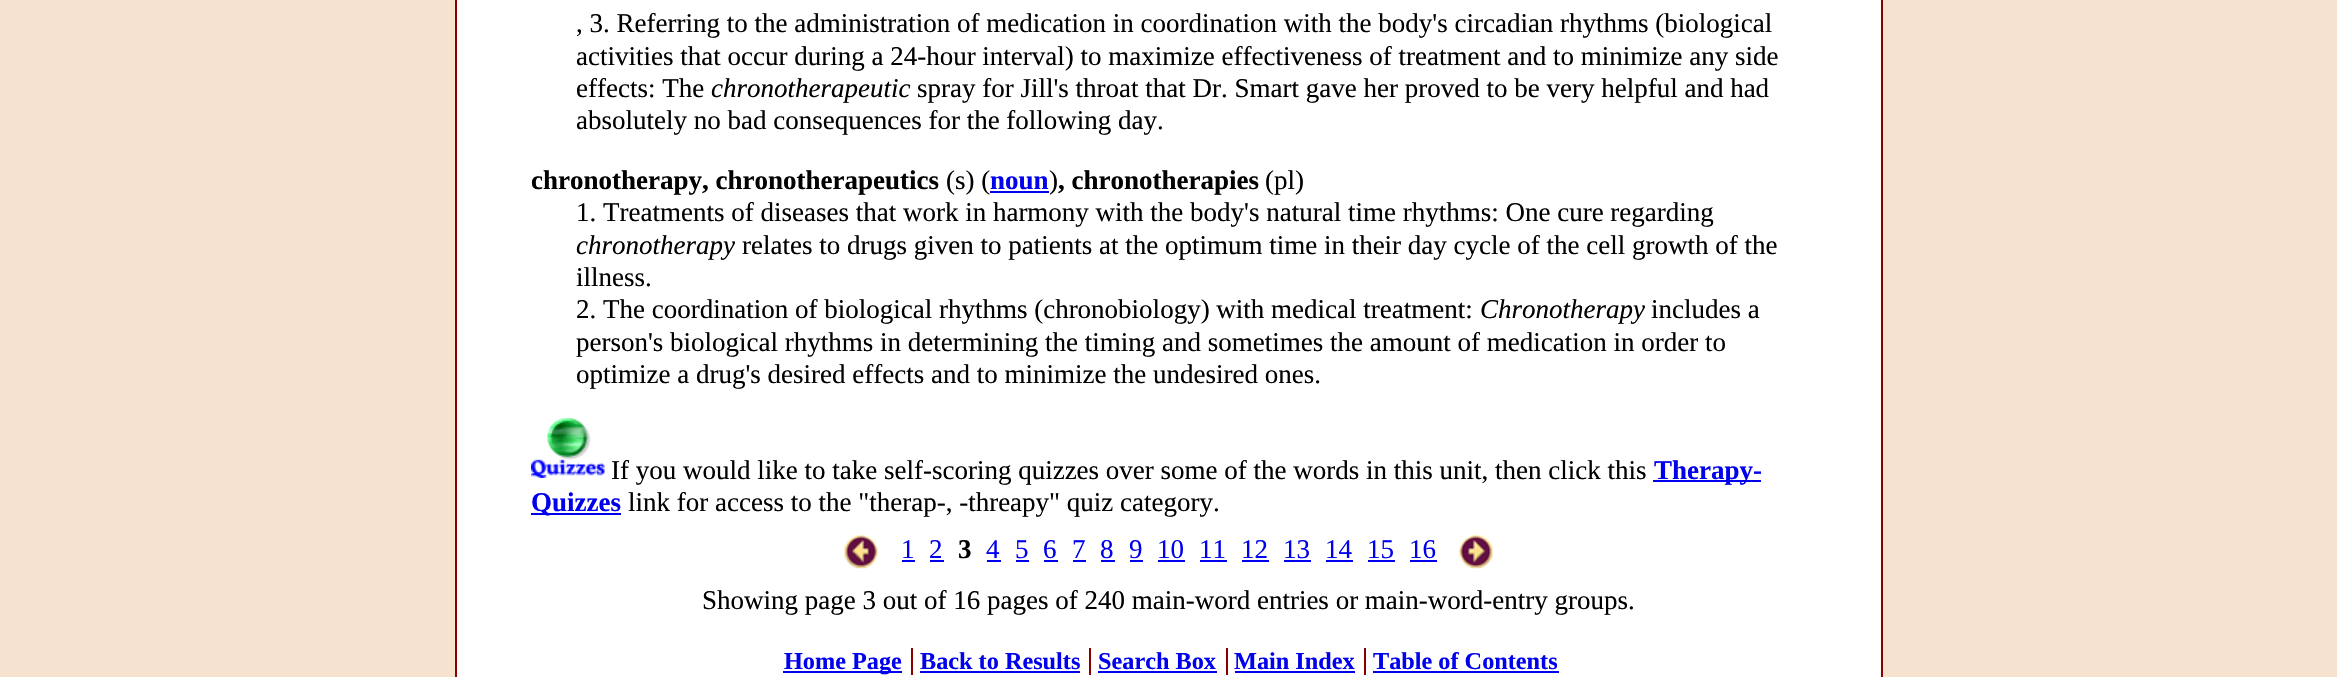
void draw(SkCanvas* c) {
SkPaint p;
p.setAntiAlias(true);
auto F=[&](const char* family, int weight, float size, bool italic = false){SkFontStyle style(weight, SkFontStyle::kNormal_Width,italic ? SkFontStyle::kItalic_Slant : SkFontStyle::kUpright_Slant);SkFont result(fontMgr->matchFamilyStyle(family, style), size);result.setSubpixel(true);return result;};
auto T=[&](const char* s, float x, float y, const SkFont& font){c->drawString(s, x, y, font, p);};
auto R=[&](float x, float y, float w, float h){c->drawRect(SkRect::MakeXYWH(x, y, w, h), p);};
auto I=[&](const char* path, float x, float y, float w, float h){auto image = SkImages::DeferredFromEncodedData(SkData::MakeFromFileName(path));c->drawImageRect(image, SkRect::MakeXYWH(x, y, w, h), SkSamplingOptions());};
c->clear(0xfff5e3cf);
p.setColor(0xffffffff);
c->drawRect(SkRect::MakeXYWH(456,-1,1426,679),p);
p.setStroke(true);
p.setStrokeWidth(2);
p.setColor(0xff880000);
c->drawRect(SkRect::MakeXYWH(456,-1,1426,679),p);
auto f1 = F("Liberation Serif",400,27);
p.setStroke(false);
p.setColor(0xff000000);
T(", 3. Referring to the administration of medication in coordination with the body's circadian rhythms (biological",576,32,f1);
T("activities that occur during a 24-hour interval) to maximize effectiveness of treatment and to minimize any side",576,65,f1);
T("effects: The",576,97,f1);
auto f2 = F("Liberation Serif",400,27,true);
T("chronotherapeutic",711,97,f2);
T("spray for Jill's throat that Dr. Smart gave her proved to be very helpful and had",917,97,f1);
T("absolutely no bad consequences for the following day.",576,129,f1);
auto f3 = F("Liberation Serif",700,27);
T("chronotherapy, chronotherapeutics",531,189,f3);
T("(s) (",946,189,f1);
p.setColor(0xff0000ee);
T("noun",990,189,f3);
R(990,191,59,2);
p.setColor(0xff000000);
T(")",1049,189,f1);
T(", chronotherapies",1058,189,f3);
T("(pl)",1265,189,f1);
T("1. Treatments of diseases that work in harmony with the body's natural time rhythms: One cure regarding",576,221,f1);
T("chronotherapy",576,254,f2);
T("relates to drugs given to patients at the optimum time in their day cycle of the cell growth of the",742,254,f1);
T("illness.",576,286,f1);
T("2. The coordination of biological rhythms (chronobiology) with medical treatment:",576,318,f1);
T("Chronotherapy",1480,318,f2);
T("includes a",1651,318,f1);
T("person's biological rhythms in determining the timing and sometimes the amount of medication in order to",576,351,f1);
T("optimize a drug's desired effects and to minimize the undesired ones.",576,383,f1);
I("1.png",531,418,74,60);
T("If you would like to take self-scoring quizzes over some of the words in this unit, then click this",611,479,f1);
p.setColor(0xff0000ee);
R(1653,480,108,2);
T("Therapy-",1654,479,f3);
R(531,513,90,2);
T("Quizzes",531,511,f3);
p.setColor(0xff000000);
T("link for access to the \"therap-, -threapy\" quiz category.",628,511,f1);
I("2.png",844,534,34,35);
p.setColor(0xff0000ee);
T("1",901,558,f1);
R(902,560,13,2);
T("2",929,558,f1);
R(930,560,14,2);
p.setColor(0xff000000);
T("3",958,558,f3);
p.setColor(0xff0000ee);
T("4",986,558,f1);
R(987,560,14,2);
T("5",1015,558,f1);
R(1016,560,13,2);
T("6",1043,558,f1);
R(1044,560,14,2);
T("7",1072,558,f1);
R(1073,560,13,2);
T("8",1100,558,f1);
R(1101,560,14,2);
T("9",1129,558,f1);
R(1130,560,13,2);
T("10",1157,558,f1);
R(1158,560,27,2);
T("11",1199,558,f1);
R(1200,560,27,2);
T("12",1241,558,f1);
R(1242,560,27,2);
T("13",1283,558,f1);
R(1284,560,27,2);
T("14",1325,558,f1);
R(1326,560,27,2);
T("15",1367,558,f1);
R(1368,560,27,2);
T("16",1409,558,f1);
R(1410,560,27,2);
I("3.png",1459,534,34,35);
p.setColor(0xff000000);
T("Showing page 3 out of 16 pages of 240 main-word entries or main-word-entry groups.",702,609,f1);
p.setColor(0xff0000ee);
R(783,671,119,2);
auto f4 = F("Liberation Serif",700,24.25);
T("Home Page",784,669,f4);
T("Back to Results",920,669,f4);
p.setColor(0xff880000);
R(911,648,2,27);
p.setColor(0xff0000ee);
R(920,671,160,2);
T("Search Box",1098,669,f4);
p.setColor(0xff880000);
R(1089,648,2,27);
p.setColor(0xff0000ee);
R(1098,671,119,2);
T("Main Index",1234,669,f4);
p.setColor(0xff880000);
R(1226,648,2,27);
p.setColor(0xff0000ee);
R(1235,671,120,2);
T("Table of Contents",1373,669,f4);
p.setColor(0xff880000);
R(1364,648,2,27);
p.setColor(0xff0000ee);
R(1373,671,186,2);
}
